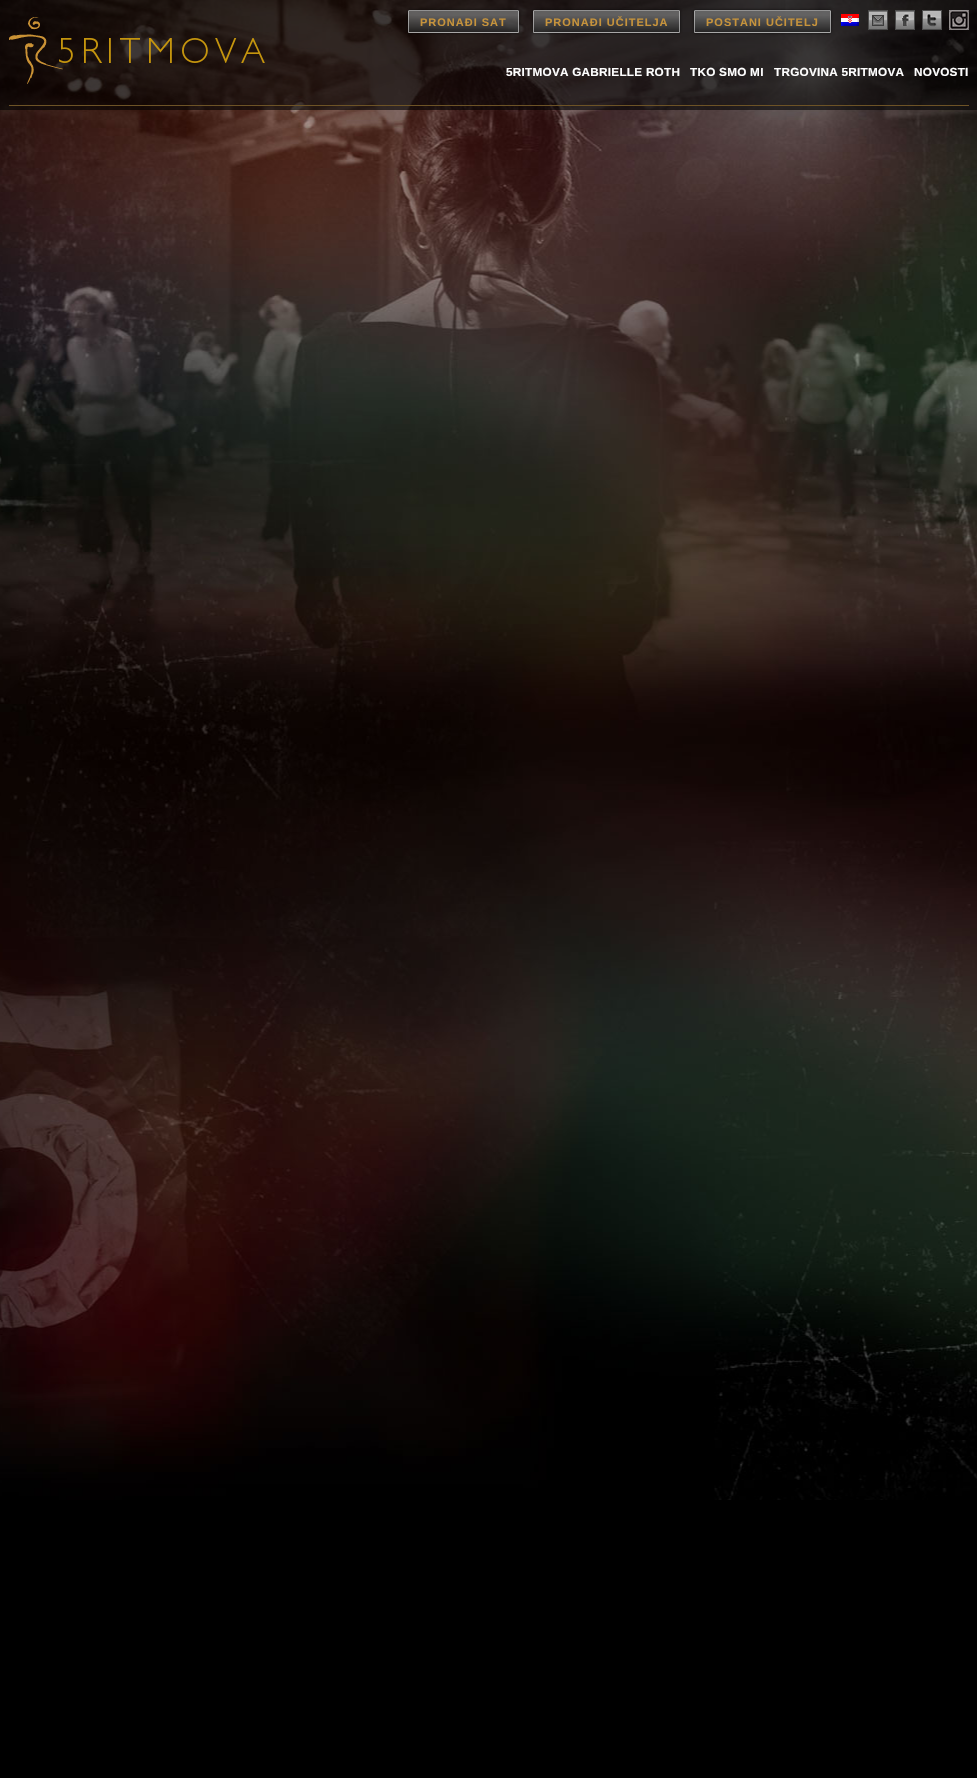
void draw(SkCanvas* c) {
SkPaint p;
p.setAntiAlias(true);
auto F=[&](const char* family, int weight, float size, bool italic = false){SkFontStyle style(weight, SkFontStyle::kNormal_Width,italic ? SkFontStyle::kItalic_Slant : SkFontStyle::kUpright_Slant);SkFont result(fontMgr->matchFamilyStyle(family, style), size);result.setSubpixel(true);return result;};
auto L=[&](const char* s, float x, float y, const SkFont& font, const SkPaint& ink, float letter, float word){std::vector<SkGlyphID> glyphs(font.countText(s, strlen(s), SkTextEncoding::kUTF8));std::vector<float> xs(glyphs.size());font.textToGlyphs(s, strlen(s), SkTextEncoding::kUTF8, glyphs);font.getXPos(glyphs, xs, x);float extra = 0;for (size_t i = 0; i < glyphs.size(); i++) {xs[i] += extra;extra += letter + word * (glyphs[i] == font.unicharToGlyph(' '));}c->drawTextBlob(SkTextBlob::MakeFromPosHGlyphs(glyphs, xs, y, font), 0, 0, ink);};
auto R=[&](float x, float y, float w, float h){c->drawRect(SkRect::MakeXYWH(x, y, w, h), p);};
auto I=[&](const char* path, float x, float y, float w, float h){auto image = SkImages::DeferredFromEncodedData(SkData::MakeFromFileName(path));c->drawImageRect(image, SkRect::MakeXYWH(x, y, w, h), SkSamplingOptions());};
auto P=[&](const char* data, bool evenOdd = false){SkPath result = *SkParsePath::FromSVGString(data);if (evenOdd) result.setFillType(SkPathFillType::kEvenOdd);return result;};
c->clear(0xff000000);
I("1.png",0,800,977,700);
I("2.png",0,0,977,800);
p.setColor(0x99000000);
R(0,0,977,110);
p.setColor(0xff6d5326);
R(9,105,960,1);
I("3.png",9,17,256,67);
c->save();
c->clipPath(P("M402 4h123v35h-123zm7 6h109c.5 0 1 .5 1 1v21c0 .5-.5 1-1 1h-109c-.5 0-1-.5-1-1v-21c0-.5 .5-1 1-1z",true),true);
p.setColor(0xb3000000);
p.setMaskFilter(SkMaskFilter::MakeBlur(kNormal_SkBlurStyle, 1.5));
c->drawRoundRect(SkRect::MakeXYWH(408,10,111,23),1,1,p);
p.setMaskFilter(nullptr);
c->restore();
{
const SkColor colors[] = {0xcc707070,0xcc252525};
const float stops[] = {.2,1};
const SkPoint ends[] = {{464,-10}, {464,11}};
p.setShader(SkGradientShader::MakeLinear(ends, colors, stops, 2, SkTileMode::kClamp));
p.setAlpha(255);
}
c->drawPath(P("M409 10h109c.5 0 1 .5 1 1h-111c0-.5 .5-1 1-1z"),p);
{
const SkColor colors[] = {0xcc707070,0xcc252525};
const float stops[] = {.2,1};
const SkPoint ends[] = {{464,11}, {464,32}};
p.setShader(SkGradientShader::MakeLinear(ends, colors, stops, 2, SkTileMode::kClamp));
p.setAlpha(255);
}
R(408,11,111,21);
{
const SkColor colors[] = {0xcc707070,0xcc252525};
const float stops[] = {.2,1};
const SkPoint ends[] = {{464,32}, {464,53}};
p.setShader(SkGradientShader::MakeLinear(ends, colors, stops, 2, SkTileMode::kClamp));
p.setAlpha(255);
}
c->drawPath(P("M408 32h111c0 .5-.5 1-1 1h-109c-.5 0-1-.5-1-1z"),p);
p.setStroke(true);
p.setStrokeWidth(1);
p.setShader(nullptr);
p.setColor(0xa6cccccc);
c->drawRoundRect(SkRect::MakeXYWH(408.5,10.5,110,22),.5,.5,p);
auto f1 = F("Liberation Sans",700,11);
p.setStroke(false);
p.setColor(0xffc6933c);
L("PRONAĐI SAT",420,26,f1,p,1,0);
c->save();
c->clipPath(P("M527 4h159v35h-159zm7 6h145c.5 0 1 .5 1 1v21c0 .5-.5 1-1 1h-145c-.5 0-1-.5-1-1v-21c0-.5 .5-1 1-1z",true),true);
p.setColor(0xb3000000);
p.setMaskFilter(SkMaskFilter::MakeBlur(kNormal_SkBlurStyle, 1.5));
c->drawRoundRect(SkRect::MakeXYWH(533,10,147,23),1,1,p);
p.setMaskFilter(nullptr);
c->restore();
{
const SkColor colors[] = {0xcc707070,0xcc252525};
const float stops[] = {.2,1};
const SkPoint ends[] = {{607,-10}, {607,11}};
p.setShader(SkGradientShader::MakeLinear(ends, colors, stops, 2, SkTileMode::kClamp));
p.setAlpha(255);
}
c->drawPath(P("M534 10h145c.5 0 1 .5 1 1h-147c0-.5 .5-1 1-1z"),p);
{
const SkColor colors[] = {0xcc707070,0xcc252525};
const float stops[] = {.2,1};
const SkPoint ends[] = {{607,11}, {607,32}};
p.setShader(SkGradientShader::MakeLinear(ends, colors, stops, 2, SkTileMode::kClamp));
p.setAlpha(255);
}
R(533,11,147,21);
{
const SkColor colors[] = {0xcc707070,0xcc252525};
const float stops[] = {.2,1};
const SkPoint ends[] = {{607,32}, {607,53}};
p.setShader(SkGradientShader::MakeLinear(ends, colors, stops, 2, SkTileMode::kClamp));
p.setAlpha(255);
}
c->drawPath(P("M533 32h147c0 .5-.5 1-1 1h-145c-.5 0-1-.5-1-1z"),p);
p.setStroke(true);
p.setShader(nullptr);
p.setColor(0xa6cccccc);
c->drawRoundRect(SkRect::MakeXYWH(533.5,10.5,146,22),.5,.5,p);
p.setStroke(false);
p.setColor(0xffc6933c);
L("PRONAĐI UČITELJA",545,26,f1,p,1,0);
c->save();
c->clipPath(P("M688 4h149v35h-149zm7 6h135c.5 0 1 .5 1 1v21c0 .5-.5 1-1 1h-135c-.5 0-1-.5-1-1v-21c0-.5 .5-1 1-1z",true),true);
p.setColor(0xb3000000);
p.setMaskFilter(SkMaskFilter::MakeBlur(kNormal_SkBlurStyle, 1.5));
c->drawRoundRect(SkRect::MakeXYWH(694,10,137,23),1,1,p);
p.setMaskFilter(nullptr);
c->restore();
{
const SkColor colors[] = {0xcc707070,0xcc252525};
const float stops[] = {.2,1};
const SkPoint ends[] = {{763,-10}, {763,11}};
p.setShader(SkGradientShader::MakeLinear(ends, colors, stops, 2, SkTileMode::kClamp));
p.setAlpha(255);
}
c->drawPath(P("M695 10h135c.5 0 1 .5 1 1h-137c0-.5 .5-1 1-1z"),p);
{
const SkColor colors[] = {0xcc707070,0xcc252525};
const float stops[] = {.2,1};
const SkPoint ends[] = {{763,11}, {763,32}};
p.setShader(SkGradientShader::MakeLinear(ends, colors, stops, 2, SkTileMode::kClamp));
p.setAlpha(255);
}
R(694,11,137,21);
{
const SkColor colors[] = {0xcc707070,0xcc252525};
const float stops[] = {.2,1};
const SkPoint ends[] = {{763,32}, {763,53}};
p.setShader(SkGradientShader::MakeLinear(ends, colors, stops, 2, SkTileMode::kClamp));
p.setAlpha(255);
}
c->drawPath(P("M694 32h137c0 .5-.5 1-1 1h-135c-.5 0-1-.5-1-1z"),p);
p.setStroke(true);
p.setShader(nullptr);
p.setColor(0xa6cccccc);
c->drawRoundRect(SkRect::MakeXYWH(694.5,10.5,136,22),.5,.5,p);
p.setStroke(false);
p.setColor(0xffc6933c);
L("POSTANI UČITELJ",706,26,f1,p,1,0);
I("4.png",841,14,18,12);
I("5.png",868,10,20,20);
I("6.png",895,10,20,20);
I("7.png",922,10,20,20);
I("8.png",949,10,20,20);
auto f2 = F("Liberation Sans",700,11.75);
p.setColor(0xffffffff);
L("5RITMOVA GABRIELLE ROTH",506,76,f2,p,.25,0);
L("TKO SMO MI",690,76,f2,p,.25,0);
L("TRGOVINA 5RITMOVA",774,76,f2,p,.25,0);
L("NOVOSTI",914,76,f2,p,.25,0);
}
